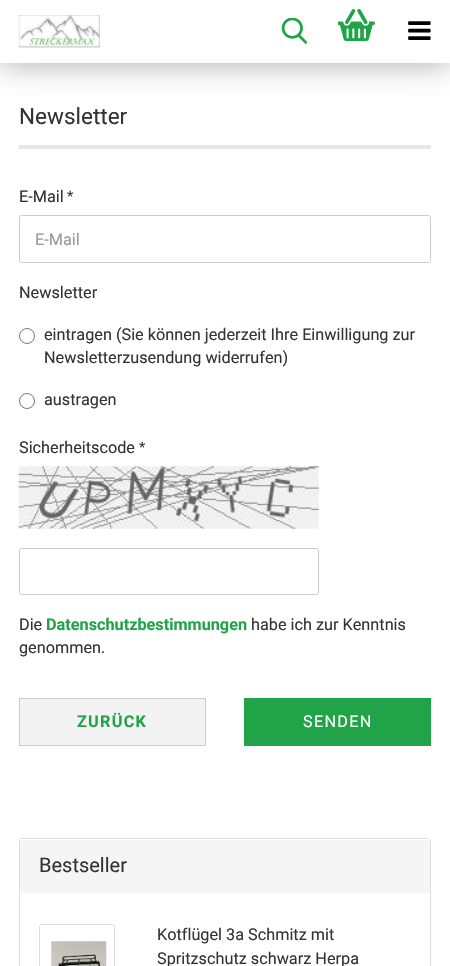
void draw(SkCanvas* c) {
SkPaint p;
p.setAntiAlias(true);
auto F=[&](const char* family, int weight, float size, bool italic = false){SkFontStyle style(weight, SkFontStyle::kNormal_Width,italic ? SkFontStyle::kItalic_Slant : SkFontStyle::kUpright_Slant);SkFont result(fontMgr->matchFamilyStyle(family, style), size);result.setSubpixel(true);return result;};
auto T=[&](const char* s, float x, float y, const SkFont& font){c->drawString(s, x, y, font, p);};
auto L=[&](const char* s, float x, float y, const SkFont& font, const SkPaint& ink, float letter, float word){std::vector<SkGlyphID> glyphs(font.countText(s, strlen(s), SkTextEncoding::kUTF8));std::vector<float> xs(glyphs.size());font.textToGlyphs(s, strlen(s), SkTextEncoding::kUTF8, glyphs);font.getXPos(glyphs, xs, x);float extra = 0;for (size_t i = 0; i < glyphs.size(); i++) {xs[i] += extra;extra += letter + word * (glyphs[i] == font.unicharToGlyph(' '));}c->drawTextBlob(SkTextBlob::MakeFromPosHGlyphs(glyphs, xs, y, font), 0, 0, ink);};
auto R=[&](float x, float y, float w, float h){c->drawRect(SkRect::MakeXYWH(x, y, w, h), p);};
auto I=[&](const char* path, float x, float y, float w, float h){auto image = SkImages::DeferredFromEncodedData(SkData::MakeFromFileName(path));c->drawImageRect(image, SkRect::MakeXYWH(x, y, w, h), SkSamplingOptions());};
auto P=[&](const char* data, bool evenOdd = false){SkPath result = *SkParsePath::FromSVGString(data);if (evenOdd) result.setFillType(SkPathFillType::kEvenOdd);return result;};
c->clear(0xffffffff);
p.setColor(0x59000000);
p.setMaskFilter(SkMaskFilter::MakeBlur(kNormal_SkBlurStyle, 15.5));
c->drawRect(SkRect::MakeXYWH(0,0,450,63),p);
p.setMaskFilter(nullptr);
p.setColor(0xffffffff);
R(0,0,450,63);
I("1.png",18,15,82,33);
I("2.png",281,18,26,26);
I("3.png",338,9,37,32);
I("4.png",408,21,23,19);
p.setColor(0xffe7e7e7);
R(19,145,412,4);
auto f1 = F("Roboto",400,22.5);
p.setColor(0xff333333);
T("Newsletter",19,124,f1);
auto f2 = F("Roboto",400,16.25);
T("E-Mail",19,202,f2);
auto f3 = F("Liberation Sans",400,16.25);
T("*",67,202,f3);
p.setStroke(true);
p.setStrokeWidth(1);
p.setColor(0xffcccccc);
c->drawRoundRect(SkRect::MakeXYWH(19.5,215.5,411,47),2,2,p);
p.setStroke(false);
p.setColor(0xff999999);
T("E-Mail",35,245,f2);
p.setColor(0xff333333);
T("Newsletter",19,298,f2);
p.setStroke(true);
p.setColor(0xff767676);
c->drawCircle(27,336,7.5,p);
p.setStroke(false);
p.setColor(0xff333333);
T("eintragen (Sie können jederzeit Ihre Einwilligung zur",44,340,f2);
T("Newsletterzusendung widerrufen)",44,363,f2);
p.setStroke(true);
p.setColor(0xff767676);
c->drawCircle(27,401,7.5,p);
p.setStroke(false);
p.setColor(0xff333333);
T("austragen",44,405,f2);
T("Sicherheitscode",19,453,f2);
T("*",139,453,f3);
I("5.png",18,466,301,63);
p.setStroke(true);
p.setColor(0xffcccccc);
c->drawRoundRect(SkRect::MakeXYWH(19.5,548.5,299,46),2,2,p);
p.setStroke(false);
p.setColor(0xff333333);
T("Die",19,630,f2);
auto f4 = F("Roboto",700,16.25);
p.setColor(0xff20a447);
T("Datenschutzbestimmungen",46,630,f4);
p.setColor(0xff333333);
T("habe ich zur Kenntnis",251,630,f2);
T("genommen.",19,653,f2);
p.setColor(0xfff3f3f3);
c->drawRect(SkRect::MakeXYWH(19.5,698.5,186,47),p);
p.setStroke(true);
p.setColor(0xffcccccc);
c->drawRect(SkRect::MakeXYWH(19.5,698.5,186,47),p);
p.setStroke(false);
p.setColor(0xff20a447);
L("ZURÜCK",77,727,f4,p,1.25,0);
R(244,698,187,48);
p.setColor(0xffffffff);
L("SENDEN",303,727,f2,p,1.25,0);
p.setStroke(true);
p.setColor(0xffdddddd);
c->drawRoundRect(SkRect::MakeXYWH(19.5,838.5,411,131),2,2,p);
p.setStroke(false);
p.setColor(0xfff5f5f5);
c->drawPath(P("M21 839h408c.5 0 1 .5 1 1v53h-410v-53c0-.5 .5-1 1-1z"),p);
p.setColor(0xffffffff);
c->drawPath(P("M21 840h408l1 1v-1l-1-1h-409v2z"),p);
auto f5 = F("Roboto",400,20);
p.setColor(0xff333333);
T("Bestseller",39,872,f5);
p.setStroke(true);
p.setColor(0xffdddddd);
c->drawRoundRect(SkRect::MakeXYWH(39.5,924.5,75,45),2,2,p);
I("6.png",51,941,56,25);
p.setStroke(false);
p.setColor(0xff333333);
T("Kotflügel 3a Schmitz mit",157,940,f2);
T("Spritzschutz schwarz Herpa",157,964,f2);
}
